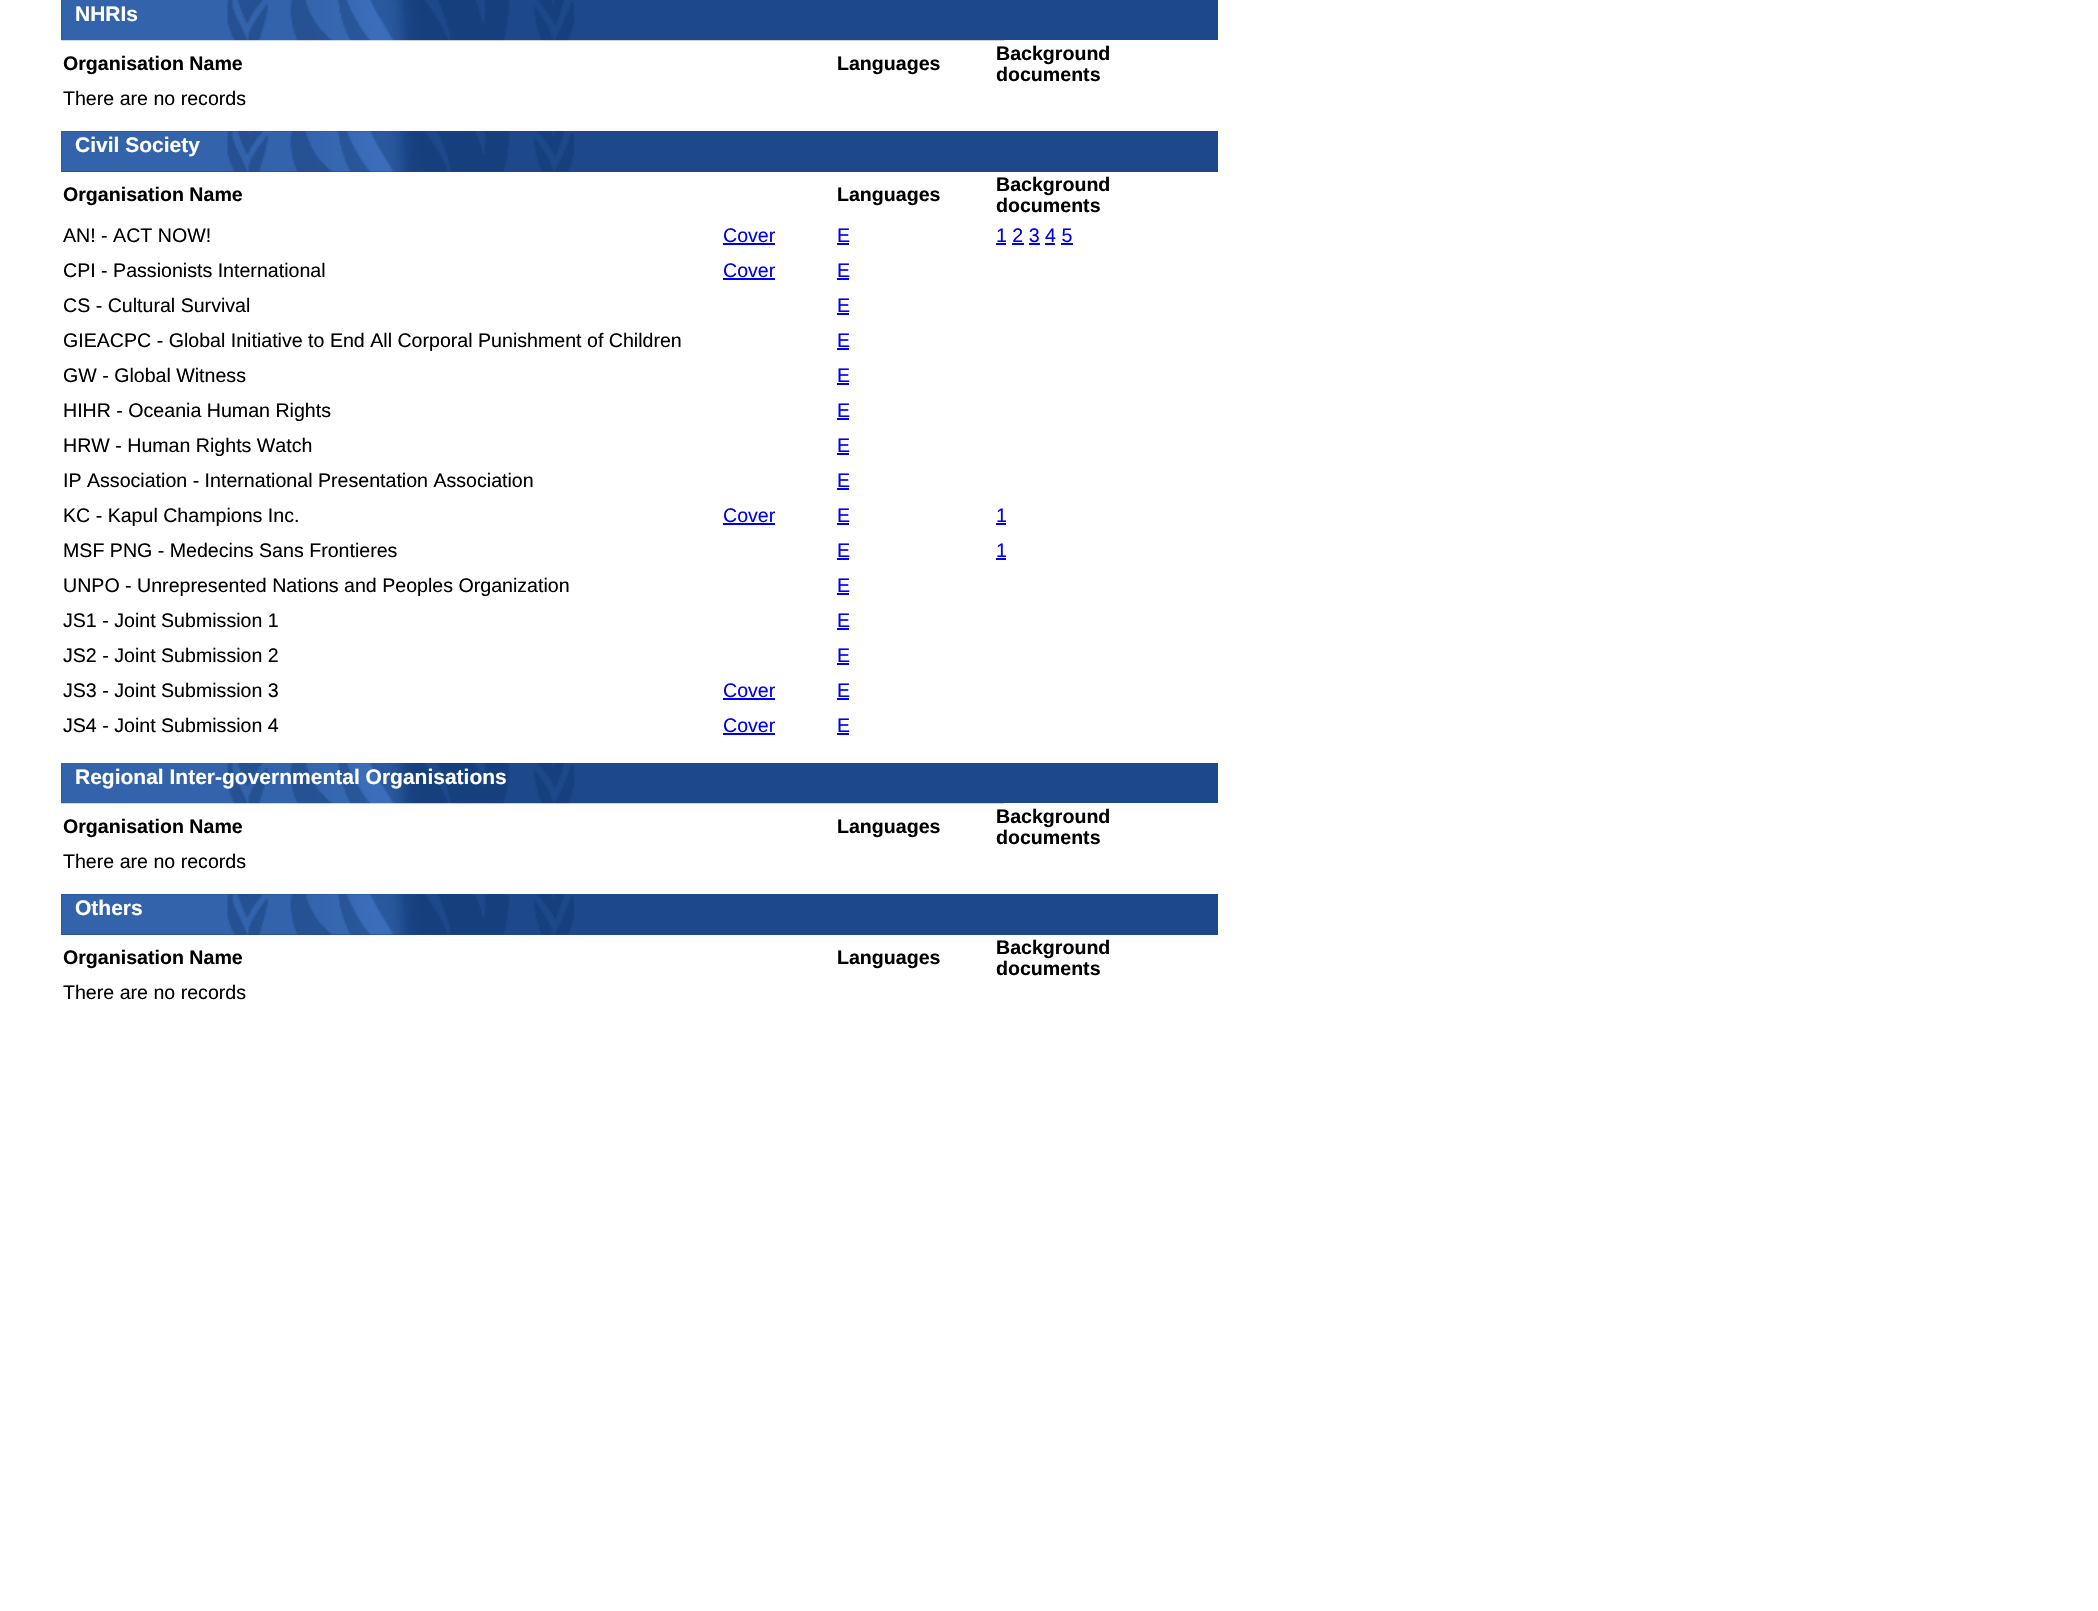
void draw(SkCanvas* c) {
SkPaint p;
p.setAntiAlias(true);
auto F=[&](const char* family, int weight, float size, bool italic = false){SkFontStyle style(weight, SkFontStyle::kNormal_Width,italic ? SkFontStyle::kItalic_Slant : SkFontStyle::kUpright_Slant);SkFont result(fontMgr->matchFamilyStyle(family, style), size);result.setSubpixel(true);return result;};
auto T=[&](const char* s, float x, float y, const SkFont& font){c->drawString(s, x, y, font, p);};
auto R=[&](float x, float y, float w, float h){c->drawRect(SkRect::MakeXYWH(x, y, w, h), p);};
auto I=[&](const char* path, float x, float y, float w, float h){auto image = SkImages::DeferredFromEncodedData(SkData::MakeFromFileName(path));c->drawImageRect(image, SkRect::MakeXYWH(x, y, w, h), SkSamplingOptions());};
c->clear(0xffffffff);
p.setColor(0xff1d498b);
R(61,0,1157,40);
I("1.png",61,0,944,41);
auto f1 = F("Liberation Sans",700,21);
p.setColor(0xffffffff);
T("NHRIs",75,21,f1);
auto f2 = F("Liberation Sans",700,19.6);
p.setColor(0xff000000);
T("Organisation Name",63,70,f2);
T("Languages",837,70,f2);
T("Background",996,60,f2);
T("documents",996,81,f2);
auto f3 = F("Liberation Sans",400,19.6);
T("There are no records",63,105,f3);
p.setColor(0xff1d498b);
R(61,131,1157,41);
I("2.png",61,131,513,41);
p.setColor(0xffffffff);
T("Civil Society",75,152,f1);
p.setColor(0xff000000);
T("Organisation Name",63,201,f2);
T("Languages",837,201,f2);
T("Background",996,191,f2);
T("documents",996,212,f2);
T("AN! - ACT NOW!",63,242,f3);
p.setColor(0xff0000ee);
T("Cover",723,242,f3);
R(723,243,52,2);
T("E",837,242,f3);
R(837,243,12,2);
T("1 2 3 4 5",996,242,f3);
R(996,243,10,2);
R(1012,243,12,2);
R(1029,243,11,2);
R(1045,243,10,2);
R(1061,243,12,2);
p.setColor(0xff000000);
T("CPI - Passionists International",63,277,f3);
p.setColor(0xff0000ee);
T("Cover",723,277,f3);
R(723,278,52,2);
T("E",837,277,f3);
R(837,278,12,2);
p.setColor(0xff000000);
T("CS - Cultural Survival",63,312,f3);
p.setColor(0xff0000ee);
T("E",837,312,f3);
R(837,313,12,2);
p.setColor(0xff000000);
T("GIEACPC - Global Initiative to End All Corporal Punishment of Children",63,347,f3);
p.setColor(0xff0000ee);
T("E",837,347,f3);
R(837,348,12,2);
p.setColor(0xff000000);
T("GW - Global Witness",63,382,f3);
p.setColor(0xff0000ee);
T("E",837,382,f3);
R(837,383,12,2);
p.setColor(0xff000000);
T("HIHR - Oceania Human Rights",63,417,f3);
p.setColor(0xff0000ee);
T("E",837,417,f3);
R(837,418,12,2);
p.setColor(0xff000000);
T("HRW - Human Rights Watch",63,452,f3);
p.setColor(0xff0000ee);
T("E",837,452,f3);
R(837,453,12,2);
p.setColor(0xff000000);
T("IP Association - International Presentation Association",63,487,f3);
p.setColor(0xff0000ee);
T("E",837,487,f3);
R(837,488,12,2);
p.setColor(0xff000000);
T("KC - Kapul Champions Inc.",63,522,f3);
p.setColor(0xff0000ee);
T("Cover",723,522,f3);
R(723,523,52,2);
T("E",837,522,f3);
R(837,523,12,2);
T("1",996,522,f3);
R(996,523,10,2);
p.setColor(0xff000000);
T("MSF PNG - Medecins Sans Frontieres",63,557,f3);
p.setColor(0xff0000ee);
T("E",837,557,f3);
R(837,558,12,2);
T("1",996,557,f3);
R(996,558,10,2);
p.setColor(0xff000000);
T("UNPO - Unrepresented Nations and Peoples Organization",63,592,f3);
p.setColor(0xff0000ee);
T("E",837,592,f3);
R(837,593,12,2);
p.setColor(0xff000000);
T("JS1 - Joint Submission 1",63,627,f3);
p.setColor(0xff0000ee);
T("E",837,627,f3);
R(837,628,12,2);
p.setColor(0xff000000);
T("JS2 - Joint Submission 2",63,662,f3);
p.setColor(0xff0000ee);
T("E",837,662,f3);
R(837,663,12,2);
p.setColor(0xff000000);
T("JS3 - Joint Submission 3",63,697,f3);
p.setColor(0xff0000ee);
T("Cover",723,697,f3);
R(723,698,52,2);
T("E",837,697,f3);
R(837,698,12,2);
p.setColor(0xff000000);
T("JS4 - Joint Submission 4",63,732,f3);
p.setColor(0xff0000ee);
T("Cover",723,732,f3);
R(723,733,52,2);
T("E",837,732,f3);
R(837,733,12,2);
p.setColor(0xff1d498b);
R(61,763,1157,40);
I("1.png",61,763,944,41);
p.setColor(0xffffffff);
T("Regional Inter-governmental Organisations",75,784,f1);
p.setColor(0xff000000);
T("Organisation Name",63,833,f2);
T("Languages",837,833,f2);
T("Background",996,823,f2);
T("documents",996,844,f2);
T("There are no records",63,868,f3);
p.setColor(0xff1d498b);
R(61,894,1157,41);
I("2.png",61,894,513,41);
p.setColor(0xffffffff);
T("Others",75,915,f1);
p.setColor(0xff000000);
T("Organisation Name",63,964,f2);
T("Languages",837,964,f2);
T("Background",996,954,f2);
T("documents",996,975,f2);
T("There are no records",63,999,f3);
}
